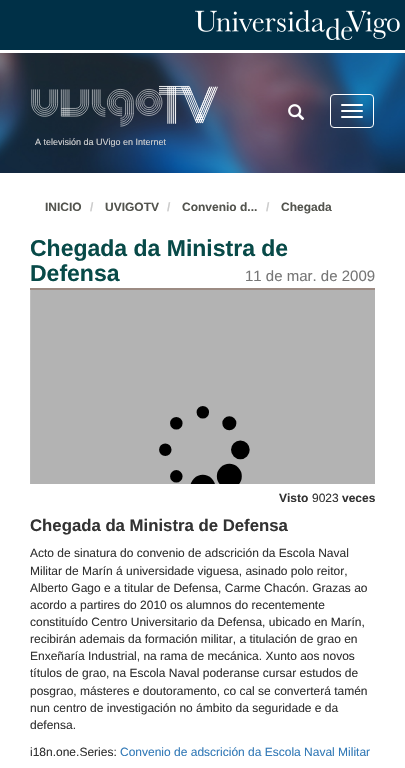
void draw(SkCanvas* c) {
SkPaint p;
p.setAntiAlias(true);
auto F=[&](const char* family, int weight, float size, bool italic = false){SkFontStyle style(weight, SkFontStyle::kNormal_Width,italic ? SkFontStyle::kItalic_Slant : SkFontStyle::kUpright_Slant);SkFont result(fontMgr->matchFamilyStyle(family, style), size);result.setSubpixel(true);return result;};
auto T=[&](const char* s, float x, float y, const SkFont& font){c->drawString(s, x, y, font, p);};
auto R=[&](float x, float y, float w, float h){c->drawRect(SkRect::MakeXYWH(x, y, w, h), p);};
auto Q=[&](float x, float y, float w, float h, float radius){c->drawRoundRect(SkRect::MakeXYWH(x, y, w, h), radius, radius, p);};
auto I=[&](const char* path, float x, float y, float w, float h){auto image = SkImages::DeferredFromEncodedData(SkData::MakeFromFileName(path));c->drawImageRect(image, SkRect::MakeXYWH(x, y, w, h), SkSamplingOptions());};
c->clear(0xffffffff);
p.setColor(0xff003047);
R(0,0,405,50);
I("1.png",195,10,205,30);
I("2.png",0,53,405,120);
I("3.png",288,104,17,17);
p.setStroke(true);
p.setStrokeWidth(1);
p.setColor(0xffffffff);
c->drawRoundRect(SkRect::MakeXYWH(330.5,94.5,43,33),3.5,3.5,p);
p.setStroke(false);
Q(341,104,22,2,1);
Q(341,110,22,2,1);
Q(341,116,22,2,1);
I("4.png",31,85,187,42);
auto f1 = F("Liberation Sans",400,9);
p.setColor(0xffd3d3d3);
T("A televisión da UVigo en Internet",35,145,f1);
auto f2 = F("Liberation Sans",700,12);
p.setColor(0xff53544e);
T("INICIO",45,211,f2);
p.setColor(0xffcccccc);
T("/",90,211,f2);
p.setColor(0xff53544e);
T("UVIGOTV",105,211,f2);
p.setColor(0xffcccccc);
T("/",167,211,f2);
p.setColor(0xff53544e);
T("Convenio d...",182,211,f2);
p.setColor(0xffcccccc);
T("/",266,211,f2);
p.setColor(0xff53544e);
T("Chegada",281,211,f2);
p.setColor(0xff9c8b83);
R(30,288,345,2);
auto f3 = F("Liberation Sans",700,23);
p.setColor(0xff084a48);
T("Chegada da Ministra de",30,256,f3);
T("Defensa",30,281,f3);
auto f4 = F("Liberation Sans",400,15);
p.setColor(0xff767676);
T("11 de mar. de 2009",245,281,f4);
I("5.png",30,290,345,194);
p.setColor(0xff333333);
T("Visto",279,502,f2);
auto f5 = F("Liberation Sans",400,12);
T("9023",312,502,f5);
T("veces",342,502,f2);
auto f6 = F("Liberation Sans",700,16.75);
T("Chegada da Ministra de Defensa",30,531,f6);
T("Acto de sinatura do convenio de adscrición da Escola Naval",30,557,f5);
T("Militar de Marín á universidade viguesa, asinado polo reitor,",30,575,f5);
T("Alberto Gago e a titular de Defensa, Carme Chacón. Grazas ao",30,592,f5);
T("acordo a partires do 2010 os alumnos do recentemente",30,609,f5);
T("constituído Centro Universitario da Defensa, ubicado en Marín,",30,626,f5);
T("recibirán ademais da formación militar, a titulación de grao en",30,643,f5);
T("Enxeñaría Industrial, na rama de mecánica. Xunto aos novos",30,660,f5);
T("títulos de grao, na Escola Naval poderanse cursar estudos de",30,677,f5);
T("posgrao, másteres e doutoramento, co cal se converterá tamén",30,695,f5);
T("nun centro de investigación no ámbito da seguridade e da",30,712,f5);
T("defensa.",30,729,f5);
T("i18n.one.Series:",30,756,f5);
p.setColor(0xff337ab7);
T("Convenio de adscrición da Escola Naval Militar",120,756,f5);
}
